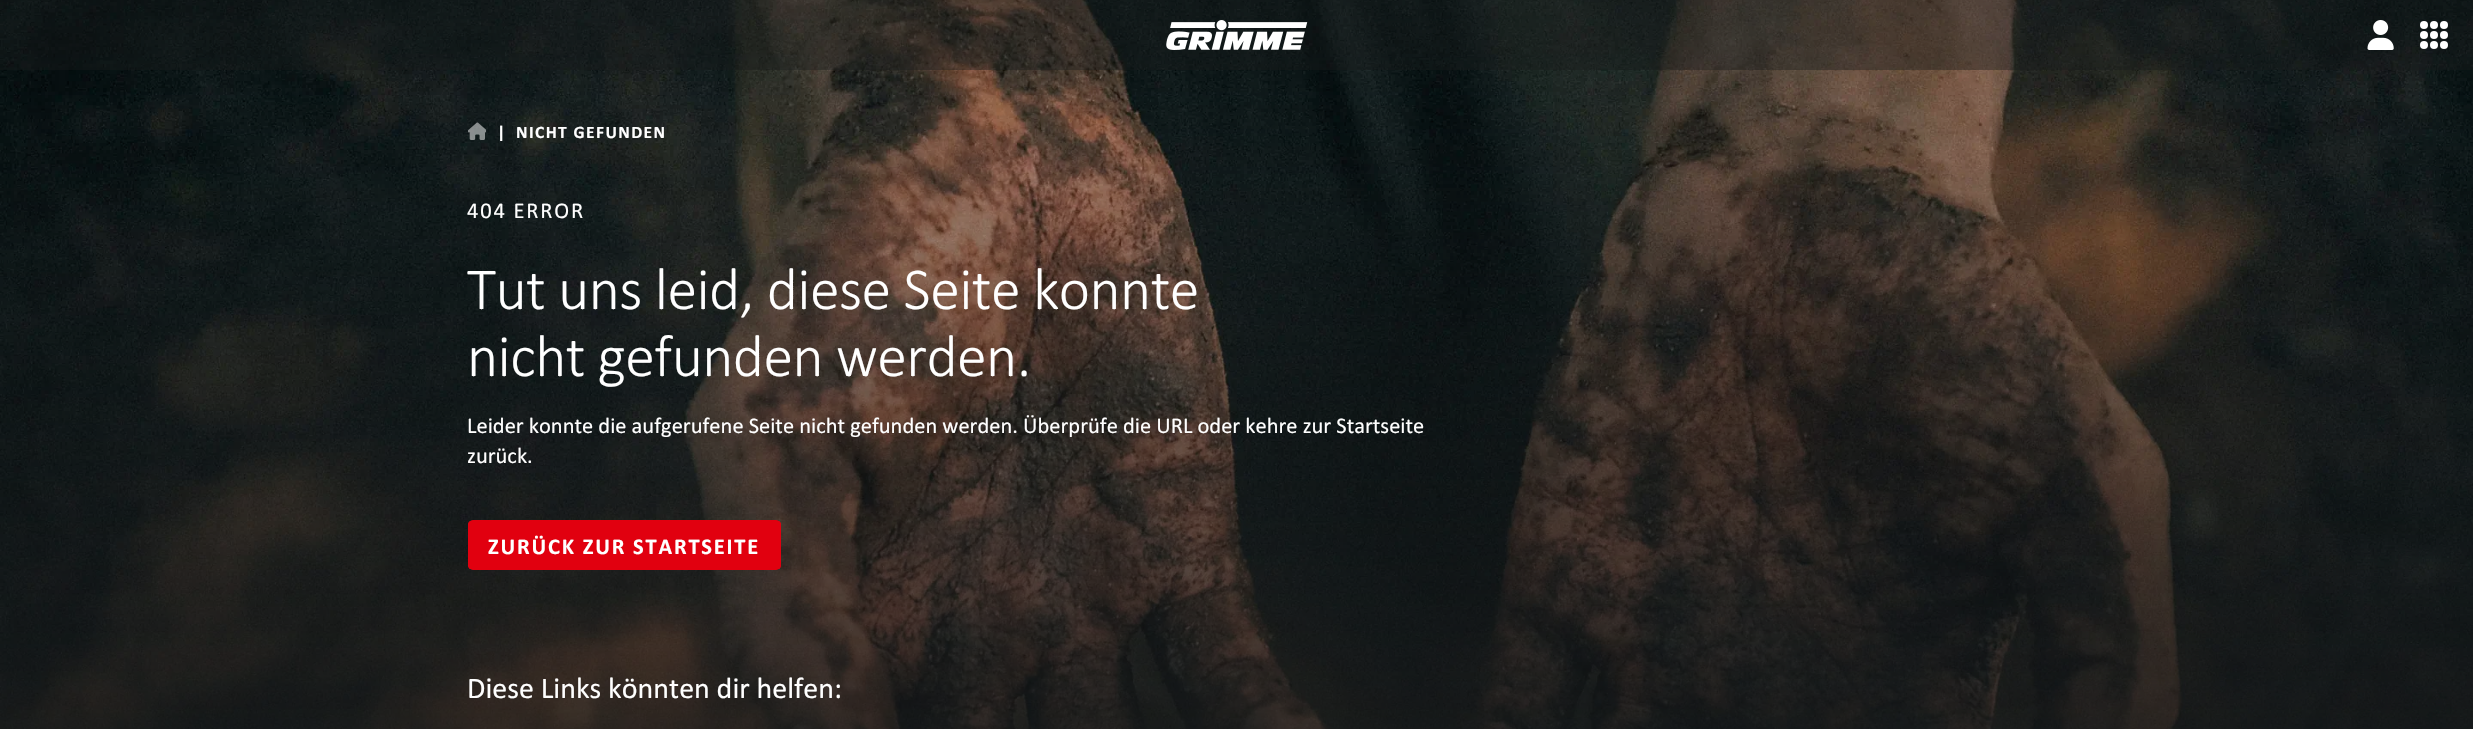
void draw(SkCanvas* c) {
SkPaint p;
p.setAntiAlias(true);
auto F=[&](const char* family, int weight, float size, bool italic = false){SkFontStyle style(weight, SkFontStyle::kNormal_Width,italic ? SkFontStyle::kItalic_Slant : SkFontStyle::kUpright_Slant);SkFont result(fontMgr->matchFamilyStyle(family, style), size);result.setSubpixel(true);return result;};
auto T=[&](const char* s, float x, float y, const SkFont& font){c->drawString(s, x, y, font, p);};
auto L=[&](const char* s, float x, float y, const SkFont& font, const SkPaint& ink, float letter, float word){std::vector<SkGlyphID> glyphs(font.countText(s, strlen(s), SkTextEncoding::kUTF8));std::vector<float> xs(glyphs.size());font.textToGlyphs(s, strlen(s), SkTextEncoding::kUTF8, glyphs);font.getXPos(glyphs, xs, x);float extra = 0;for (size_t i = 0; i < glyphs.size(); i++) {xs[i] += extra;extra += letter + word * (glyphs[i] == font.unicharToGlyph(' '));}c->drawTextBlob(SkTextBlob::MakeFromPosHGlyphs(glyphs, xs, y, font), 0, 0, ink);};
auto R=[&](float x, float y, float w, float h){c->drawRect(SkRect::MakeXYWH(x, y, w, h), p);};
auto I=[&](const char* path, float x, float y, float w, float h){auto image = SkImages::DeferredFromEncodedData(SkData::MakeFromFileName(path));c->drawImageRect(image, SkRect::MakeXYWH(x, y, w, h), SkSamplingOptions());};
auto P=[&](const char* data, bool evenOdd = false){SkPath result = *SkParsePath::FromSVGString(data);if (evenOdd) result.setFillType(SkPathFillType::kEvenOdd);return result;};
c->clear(0xffffffff);
I("3.png",0,0,2473,729);
p.setColor(0x66161819);
R(0,0,2473,70);
I("1.png",1166,20,142,30);
I("2.png",2367,20,27,30);
p.setColor(0xffffffff);
c->drawCircle(2424,25,4,p);
c->drawCircle(2434,25,4,p);
c->drawCircle(2444,25,4,p);
c->drawCircle(2424,35,4,p);
c->drawCircle(2434,35,4,p);
c->drawCircle(2444,35,4,p);
c->drawCircle(2424,45,4,p);
c->drawCircle(2434,45,4,p);
c->drawCircle(2444,45,4,p);
I("4.png",468,122,18,18);
auto f1 = F("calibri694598",700,17.5);
L("|",497,138,f1,p,1.4,0);
L("NICHT GEFUNDEN",516,138,f1,p,1.4,0);
auto f2 = F("calibri694598",400,22.5);
L("404 ERROR",467,218,f2,p,1.8,0);
auto f3 = F("calibri694598",300,60);
L("Tut uns leid, diese Seite konnte",467,309,f3,p,-.6,0);
L("nicht gefunden werden.",467,376,f3,p,-.6,0);
T("Leider konnte die aufgerufene Seite nicht gefunden werden. Überprüfe die URL oder kehre zur Startseite",467,433,f2);
T("zurück.",467,463,f2);
c->save();
c->clipPath(P("M473 520h303c3 0 5 2 5 5v40c0 3-2 5-5 5h-303c-3 0-5-2-5-5v-40c0-3 2-5 5-5z"),true);
p.setColor(0xffe1000f);
R(468,521,313,48);
c->restore();
p.setStroke(true);
p.setStrokeWidth(1);
c->drawRoundRect(SkRect::MakeXYWH(468.5,520.5,312,49),4.5,4.5,p);
auto f4 = F("calibri694598",700,22.5);
p.setStroke(false);
p.setColor(0xffffffff);
L("ZURÜCK ZUR STARTSEITE",488,554,f4,p,1.8,0);
auto f5 = F("calibri694598",400,30);
T("Diese Links könnten dir helfen:",467,698,f5);
}
